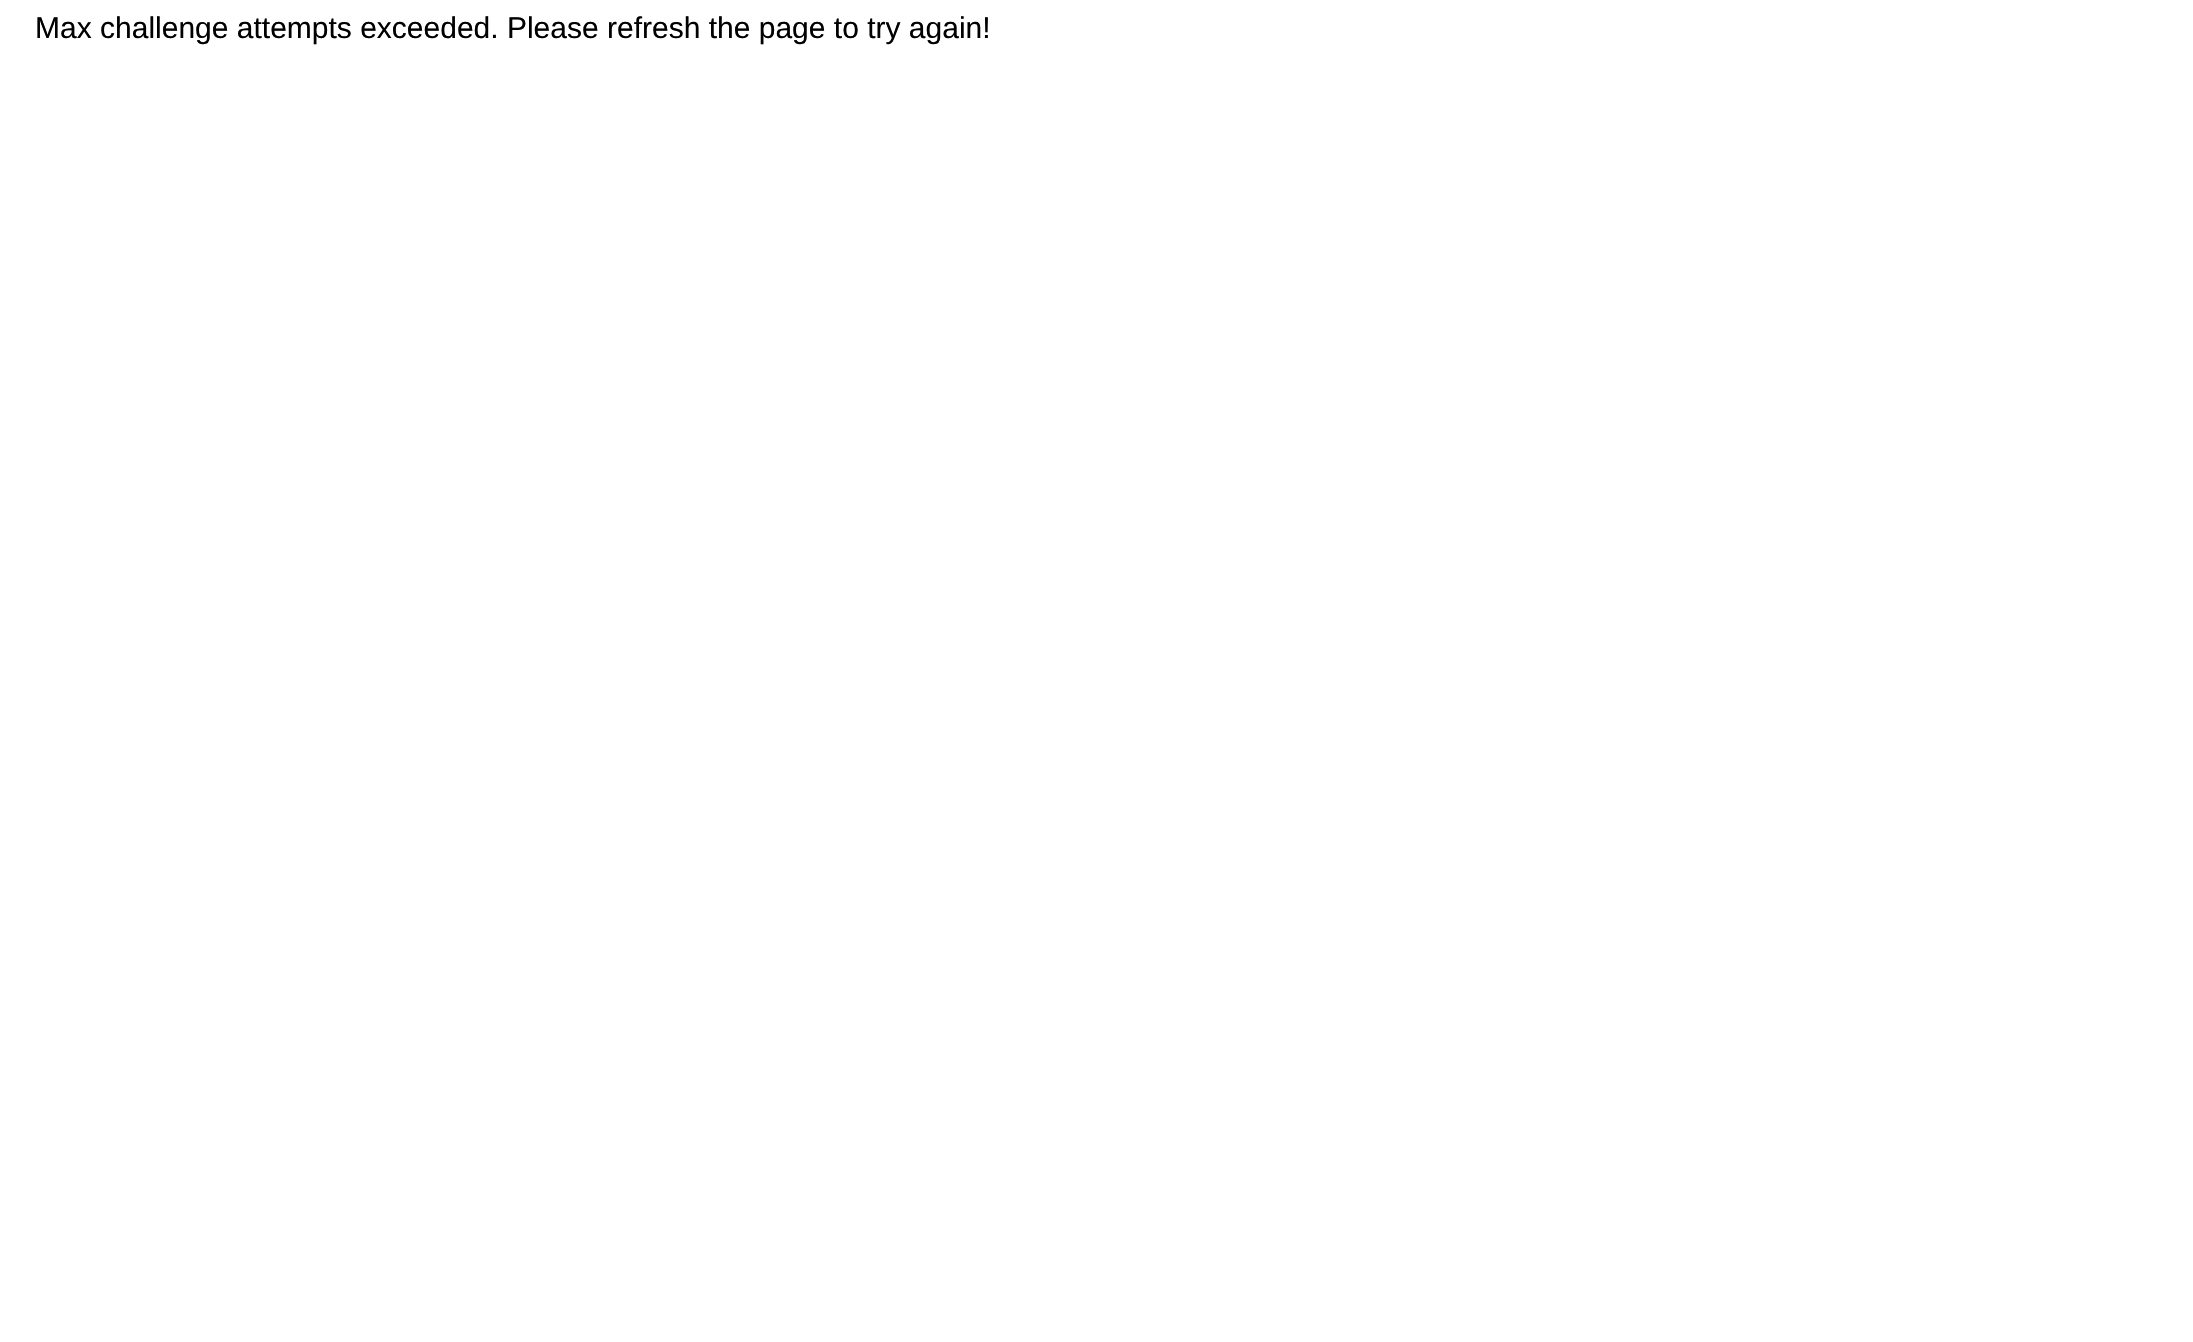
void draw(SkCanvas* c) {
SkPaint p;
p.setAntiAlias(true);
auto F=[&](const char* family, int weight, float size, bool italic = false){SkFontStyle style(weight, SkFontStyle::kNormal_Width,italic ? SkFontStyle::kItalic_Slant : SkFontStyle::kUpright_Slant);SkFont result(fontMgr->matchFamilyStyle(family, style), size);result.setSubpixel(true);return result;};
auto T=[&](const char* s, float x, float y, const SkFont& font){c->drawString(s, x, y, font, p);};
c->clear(0xffffffff);
auto f1 = F("Liberation Sans",400,30);
p.setColor(0xff000000);
T("Max challenge attempts exceeded. Please refresh the page to try again!",35,38,f1);
}
